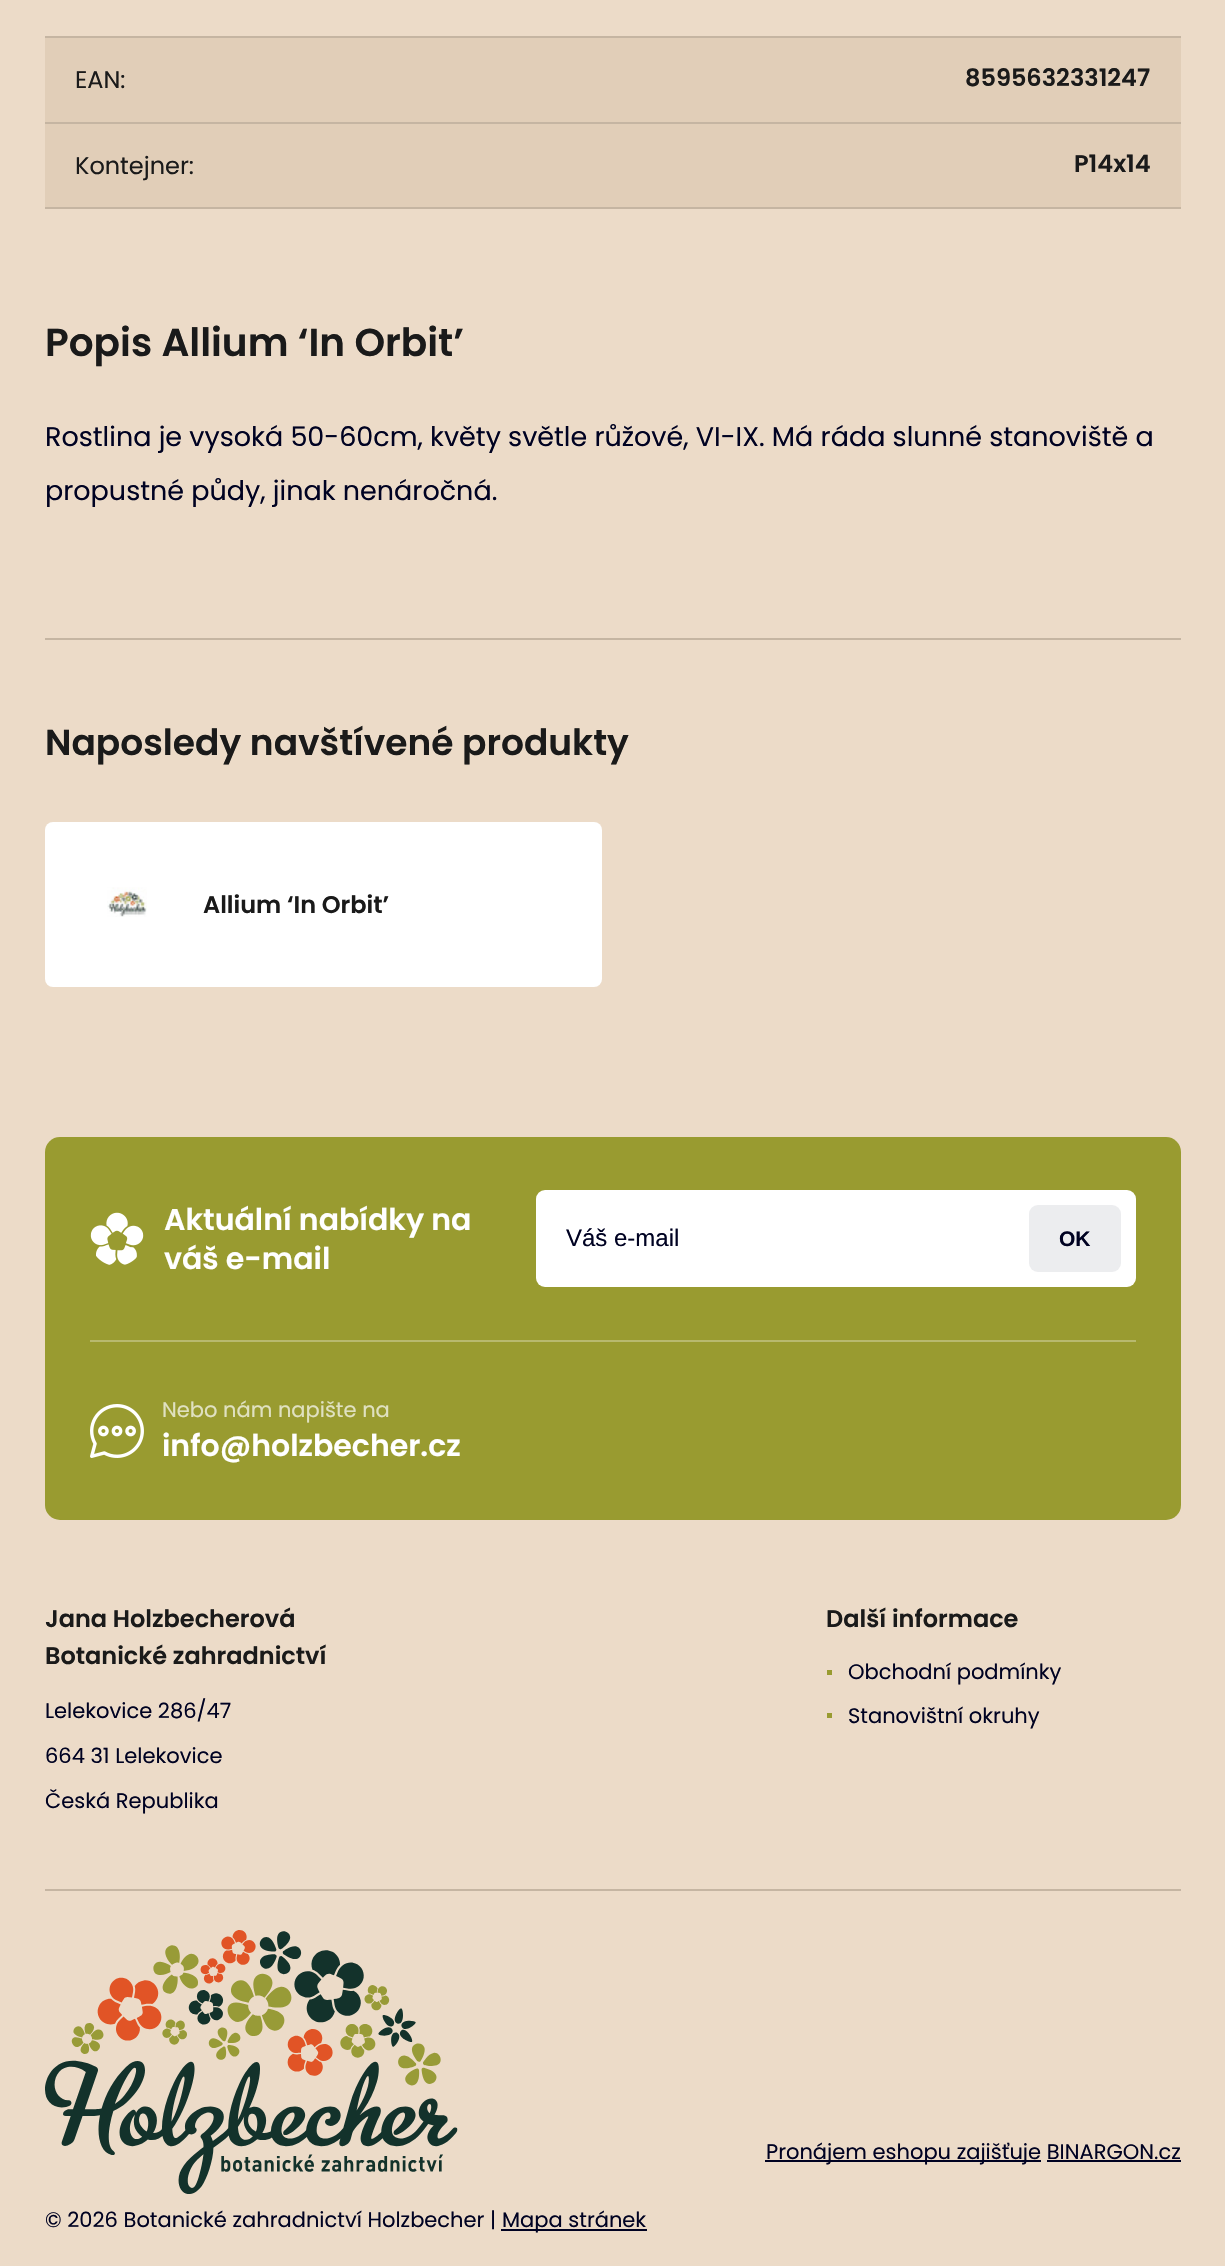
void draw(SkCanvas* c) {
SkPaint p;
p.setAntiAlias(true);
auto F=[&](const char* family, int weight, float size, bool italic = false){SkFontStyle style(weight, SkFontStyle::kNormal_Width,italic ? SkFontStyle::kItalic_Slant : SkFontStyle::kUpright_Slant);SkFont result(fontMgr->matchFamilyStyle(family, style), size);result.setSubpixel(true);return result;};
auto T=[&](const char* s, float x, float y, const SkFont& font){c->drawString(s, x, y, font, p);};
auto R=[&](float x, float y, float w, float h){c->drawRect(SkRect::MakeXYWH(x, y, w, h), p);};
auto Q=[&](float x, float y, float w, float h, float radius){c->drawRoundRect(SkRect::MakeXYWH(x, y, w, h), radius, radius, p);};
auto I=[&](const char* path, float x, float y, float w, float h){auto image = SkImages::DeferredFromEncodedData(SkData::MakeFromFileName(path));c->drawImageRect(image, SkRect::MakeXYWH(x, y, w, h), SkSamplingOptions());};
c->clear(0xffecdbc8);
p.setColor(0xffe1ceb8);
R(45,38,1136,84);
p.setColor(0xffc5b5a2);
R(45,36,1136,2);
auto f1 = F("Poppins",400,24);
p.setColor(0xff1a1a1a);
T("EAN:",75,88,f1);
auto f2 = F("Poppins",600,24);
T("8595632331247",965,86,f2);
p.setColor(0xffe1ceb8);
R(45,124,1136,83);
p.setColor(0xffc5b5a2);
R(45,122,1136,2);
R(45,207,1136,2);
p.setColor(0xff1a1a1a);
T("Kontejner:",75,174,f1);
T("P14x14",1074,172,f2);
auto f3 = F("Poppins",600,39);
T("Popis Allium ‘In Orbit’",45,356,f3);
auto f4 = F("Poppins",400,27);
p.setColor(0xff000222);
T("Rostlina je vysoká 50-60cm, květy světle růžové, VI-IX. Má ráda slunné stanoviště a",45,446,f4);
T("propustné půdy, jinak nenáročná.",45,500,f4);
p.setColor(0xffc5b5a2);
R(45,638,1136,2);
auto f5 = F("Poppins",600,36);
p.setColor(0xff1a1a1a);
T("Naposledy navštívené produkty",45,755,f5);
p.setColor(0xffffffff);
Q(45,822,557,165,8);
I("1.png",107,887,40,30);
p.setColor(0xff1a1a1a);
T("Allium ‘In Orbit’",203,913,f2);
p.setColor(0xff999b30);
Q(45,1137,1136,383,15);
I("2.png",90,1212,54,53);
auto f6 = F("Poppins",600,30);
p.setColor(0xffffffff);
T("Aktuální nabídky na",164,1230,f6);
T("váš e-mail",164,1269,f6);
Q(536,1190,600,97,9);
auto f7 = F("Liberation Sans",400,24);
p.setColor(0xff000222);
T("Váš e-mail",566,1246,f7);
p.setColor(0xffecedef);
Q(1029,1205,92,67,9);
auto f8 = F("Liberation Sans",700,21);
p.setColor(0xff000222);
T("OK",1059,1246,f8);
p.setColor(0xffb8b96e);
R(90,1340,1046,2);
I("3.png",90,1404,54,54);
auto f9 = F("Poppins",400,21);
p.setColor(0xffe0e1c1);
T("Nebo nám napište na",162,1417,f9);
p.setColor(0xffffffff);
T("info@holzbecher.cz",162,1456,f6);
p.setColor(0xff1a1a1a);
T("Jana Holzbecherová",45,1627,f2);
T("Botanické zahradnictví",45,1664,f2);
p.setColor(0xff000222);
T("Lelekovice 286/47",45,1718,f9);
T("664 31 Lelekovice",45,1763,f9);
T("Česká Republika",45,1808,f9);
p.setColor(0xff1a1a1a);
T("Další informace",826,1627,f2);
p.setColor(0xff999b30);
R(827,1670,5,5);
p.setColor(0xff000222);
T("Obchodní podmínky",848,1679,f9);
p.setColor(0xff999b30);
R(827,1713,5,5);
p.setColor(0xff000222);
T("Stanovištní okruhy",848,1723,f9);
p.setColor(0xffc5b5a2);
R(45,1889,1136,2);
p.setColor(0xff000222);
R(765,2160,276,2);
T("Pronájem eshopu zajišťuje BINARGON.cz",766,2159,f9);
R(1047,2160,134,2);
I("4.png",45,1930,413,264);
T("© 2026 Botanické zahradnictví Holzbecher |",45,2227,f9);
R(501,2229,146,2);
T("Mapa stránek",502,2227,f9);
}
